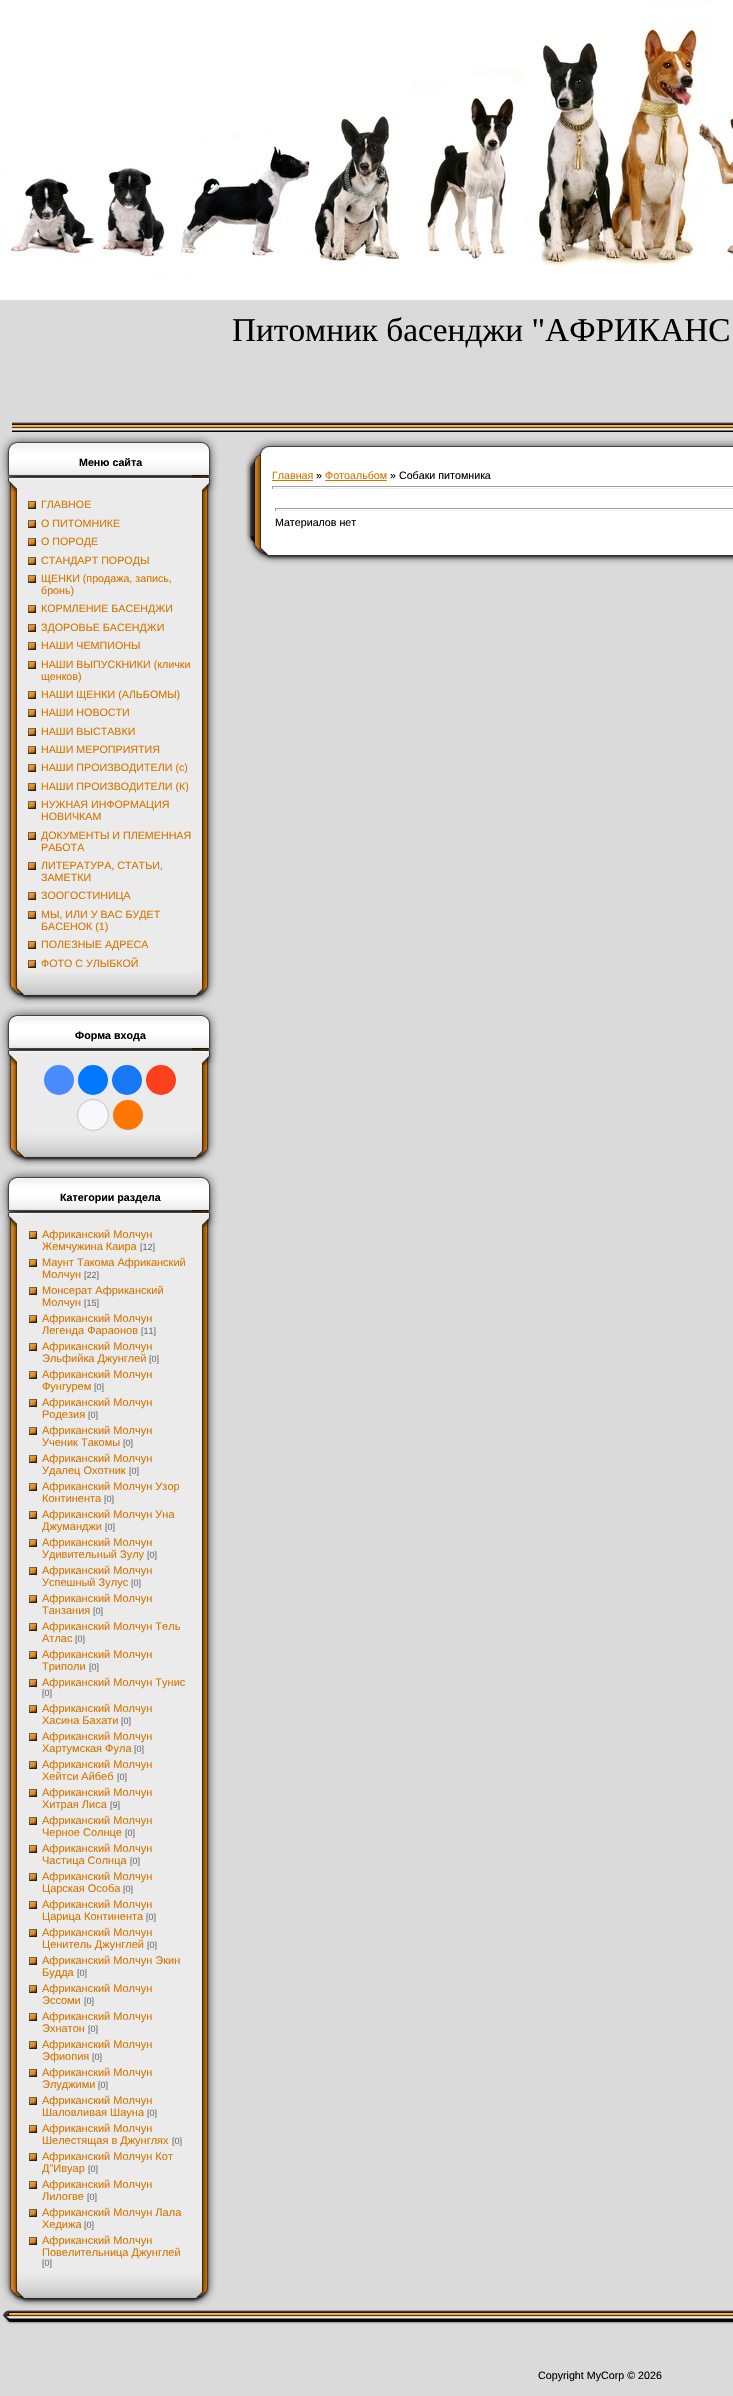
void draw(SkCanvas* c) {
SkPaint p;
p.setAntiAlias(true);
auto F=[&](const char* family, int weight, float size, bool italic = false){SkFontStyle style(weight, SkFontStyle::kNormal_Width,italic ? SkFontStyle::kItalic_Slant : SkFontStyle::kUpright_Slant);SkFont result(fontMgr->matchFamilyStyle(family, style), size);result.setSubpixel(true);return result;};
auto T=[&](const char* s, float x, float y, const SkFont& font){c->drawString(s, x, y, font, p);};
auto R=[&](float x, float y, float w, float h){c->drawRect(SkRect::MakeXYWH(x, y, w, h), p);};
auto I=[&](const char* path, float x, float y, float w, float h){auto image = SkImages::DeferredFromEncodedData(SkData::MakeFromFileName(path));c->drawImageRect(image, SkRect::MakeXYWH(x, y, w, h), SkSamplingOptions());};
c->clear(0xffdadada);
I("1.png",0,0,733,300);
auto f1 = F("Liberation Serif",400,33.3);
p.setColor(0xff000000);
T("Питомник басенджи \"АФРИКАНС",232,341,f1);
I("2.png",12,422,721,10);
p.setColor(0xffebebeb);
R(17,479,185,494);
I("3.png",0,432,28,60);
I("4.png",28,432,164,47);
auto f2 = F("Liberation Sans",700,10.7);
p.setColor(0xff000000);
T("Меню сайта",79,466,f2);
I("5.png",192,432,28,60);
I("6.png",0,492,17,477);
I("7.png",28,501,8,8);
auto f3 = F("Liberation Sans",400,10.7);
p.setColor(0xffd57500);
T("ГЛАВНОЕ",41,508,f3);
I("7.png",28,520,8,8);
T("О ПИТОМНИКЕ",41,527,f3);
I("7.png",28,538,8,8);
T("О ПОРОДЕ",41,545,f3);
I("7.png",28,557,8,8);
T("СТАНДАРТ ПОРОДЫ",41,564,f3);
I("7.png",28,575,8,8);
T("ЩЕНКИ (продажа, запись,",41,582,f3);
T("бронь)",41,594,f3);
I("7.png",28,605,8,8);
T("КОРМЛЕНИЕ БАСЕНДЖИ",41,612,f3);
I("7.png",28,624,8,8);
T("ЗДОРОВЬЕ БАСЕНДЖИ",41,631,f3);
I("7.png",28,642,8,8);
T("НАШИ ЧЕМПИОНЫ",41,649,f3);
I("7.png",28,661,8,8);
T("НАШИ ВЫПУСКНИКИ (клички",41,668,f3);
T("щенков)",41,680,f3);
I("7.png",28,691,8,8);
T("НАШИ ЩЕНКИ (АЛЬБОМЫ)",41,698,f3);
I("7.png",28,709,8,8);
T("НАШИ НОВОСТИ",41,716,f3);
I("7.png",28,728,8,8);
T("НАШИ ВЫСТАВКИ",41,735,f3);
I("7.png",28,746,8,8);
T("НАШИ МЕРОПРИЯТИЯ",41,753,f3);
I("7.png",28,764,8,8);
T("НАШИ ПРОИЗВОДИТЕЛИ (с)",41,771,f3);
I("7.png",28,783,8,8);
T("НАШИ ПРОИЗВОДИТЕЛИ (К)",41,790,f3);
I("7.png",28,801,8,8);
T("НУЖНАЯ ИНФОРМАЦИЯ",41,808,f3);
T("НОВИЧКАМ",41,820,f3);
I("7.png",28,832,8,8);
T("ДОКУМЕНТЫ И ПЛЕМЕННАЯ",41,839,f3);
T("РАБОТА",41,851,f3);
I("7.png",28,862,8,8);
T("ЛИТЕРАТУРА, СТАТЬИ,",41,869,f3);
T("ЗАМЕТКИ",41,881,f3);
I("7.png",28,892,8,8);
T("ЗООГОСТИНИЦА",41,899,f3);
I("7.png",28,911,8,8);
T("МЫ, ИЛИ У ВАС БУДЕТ",41,918,f3);
T("БАСЕНОК (1)",41,930,f3);
I("7.png",28,941,8,8);
T("ПОЛЕЗНЫЕ АДРЕСА",41,948,f3);
I("7.png",28,960,8,8);
T("ФОТО С УЛЫБКОЙ",41,967,f3);
I("8.png",202,492,18,477);
I("9.png",0,969,28,36);
I("10.png",28,973,164,32);
I("11.png",192,969,28,36);
p.setColor(0xffebebeb);
R(17,1052,185,83);
I("3.png",0,1005,28,60);
I("4.png",28,1005,164,47);
p.setColor(0xff000000);
T("Форма входа",75,1039,f2);
I("5.png",192,1005,28,60);
I("12.png",0,1065,17,66);
p.setColor(0xff498bfa);
c->drawCircle(59,1080,15,p);
p.setColor(0xff0077ff);
c->drawCircle(93,1080,15,p);
p.setColor(0xff1877f2);
c->drawCircle(127,1080,15,p);
p.setColor(0xfffc3f1d);
c->drawCircle(161,1080,15,p);
p.setColor(0xfff8f8fc);
c->drawCircle(93,1115,15.5,p);
p.setStroke(true);
p.setStrokeWidth(1);
p.setColor(0xffc4c4c4);
c->drawCircle(93,1115,15.5,p);
p.setStroke(false);
p.setColor(0xffff7700);
c->drawCircle(128,1115,15,p);
I("13.png",202,1065,18,66);
I("9.png",0,1131,28,36);
I("10.png",28,1135,164,32);
I("11.png",192,1131,28,36);
p.setColor(0xffebebeb);
R(17,1214,185,1062);
I("3.png",0,1167,28,60);
I("4.png",28,1167,164,47);
p.setColor(0xff000000);
T("Категории раздела",60,1201,f2);
I("5.png",192,1167,28,60);
I("14.png",0,1227,17,1045);
I("7.png",29,1231,8,8);
auto f4 = F("Liberation Sans",400,11);
p.setColor(0xffd57500);
T("Африканский Молчун",42,1238,f4);
T("Жемчужина Каира",42,1250,f4);
auto f5 = F("Liberation Sans",400,9);
p.setColor(0xff6e6e6e);
T("[12]",140,1250,f5);
I("7.png",29,1259,8,8);
p.setColor(0xffd57500);
T("Маунт Такома Африканский",42,1266,f4);
T("Молчун",42,1278,f4);
p.setColor(0xff6e6e6e);
T("[22]",84,1278,f5);
I("7.png",29,1287,8,8);
p.setColor(0xffd57500);
T("Монсерат Африканский",42,1294,f4);
T("Молчун",42,1306,f4);
p.setColor(0xff6e6e6e);
T("[15]",84,1306,f5);
I("7.png",29,1315,8,8);
p.setColor(0xffd57500);
T("Африканский Молчун",42,1322,f4);
T("Легенда Фараонов",42,1334,f4);
p.setColor(0xff6e6e6e);
T("[11]",141,1334,f5);
I("7.png",29,1343,8,8);
p.setColor(0xffd57500);
T("Африканский Молчун",42,1350,f4);
T("Эльфийка Джунглей",42,1362,f4);
p.setColor(0xff6e6e6e);
T("[0]",149,1362,f5);
I("7.png",29,1371,8,8);
p.setColor(0xffd57500);
T("Африканский Молчун",42,1378,f4);
T("Фунгурем",42,1390,f4);
p.setColor(0xff6e6e6e);
T("[0]",94,1390,f5);
I("7.png",29,1399,8,8);
p.setColor(0xffd57500);
T("Африканский Молчун",42,1406,f4);
T("Родезия",42,1418,f4);
p.setColor(0xff6e6e6e);
T("[0]",88,1418,f5);
I("7.png",29,1427,8,8);
p.setColor(0xffd57500);
T("Африканский Молчун",42,1434,f4);
T("Ученик Такомы",42,1446,f4);
p.setColor(0xff6e6e6e);
T("[0]",123,1446,f5);
I("7.png",29,1455,8,8);
p.setColor(0xffd57500);
T("Африканский Молчун",42,1462,f4);
T("Удалец Охотник",42,1474,f4);
p.setColor(0xff6e6e6e);
T("[0]",129,1474,f5);
I("7.png",29,1483,8,8);
p.setColor(0xffd57500);
T("Африканский Молчун Узор",42,1490,f4);
T("Континента",42,1502,f4);
p.setColor(0xff6e6e6e);
T("[0]",104,1502,f5);
I("7.png",29,1511,8,8);
p.setColor(0xffd57500);
T("Африканский Молчун Уна",42,1518,f4);
T("Джуманджи",42,1530,f4);
p.setColor(0xff6e6e6e);
T("[0]",105,1530,f5);
I("7.png",29,1539,8,8);
p.setColor(0xffd57500);
T("Африканский Молчун",42,1546,f4);
T("Удивительный Зулу",42,1558,f4);
p.setColor(0xff6e6e6e);
T("[0]",147,1558,f5);
I("7.png",29,1567,8,8);
p.setColor(0xffd57500);
T("Африканский Молчун",42,1574,f4);
T("Успешный Зулус",42,1586,f4);
p.setColor(0xff6e6e6e);
T("[0]",131,1586,f5);
I("7.png",29,1595,8,8);
p.setColor(0xffd57500);
T("Африканский Молчун",42,1602,f4);
T("Танзания",42,1614,f4);
p.setColor(0xff6e6e6e);
T("[0]",93,1614,f5);
I("7.png",29,1623,8,8);
p.setColor(0xffd57500);
T("Африканский Молчун Тель",42,1630,f4);
T("Атлас",42,1642,f4);
p.setColor(0xff6e6e6e);
T("[0]",75,1642,f5);
I("7.png",29,1651,8,8);
p.setColor(0xffd57500);
T("Африканский Молчун",42,1658,f4);
T("Триполи",42,1670,f4);
p.setColor(0xff6e6e6e);
T("[0]",89,1670,f5);
I("7.png",29,1679,8,8);
p.setColor(0xffd57500);
T("Африканский Молчун Тунис",42,1686,f4);
p.setColor(0xff6e6e6e);
T("[0]",42,1696,f5);
I("7.png",29,1705,8,8);
p.setColor(0xffd57500);
T("Африканский Молчун",42,1712,f4);
T("Хасина Бахати",42,1724,f4);
p.setColor(0xff6e6e6e);
T("[0]",121,1724,f5);
I("7.png",29,1733,8,8);
p.setColor(0xffd57500);
T("Африканский Молчун",42,1740,f4);
T("Хартумская Фула",42,1752,f4);
p.setColor(0xff6e6e6e);
T("[0]",134,1752,f5);
I("7.png",29,1761,8,8);
p.setColor(0xffd57500);
T("Африканский Молчун",42,1768,f4);
T("Хейтси Айбеб",42,1780,f4);
p.setColor(0xff6e6e6e);
T("[0]",117,1780,f5);
I("7.png",29,1789,8,8);
p.setColor(0xffd57500);
T("Африканский Молчун",42,1796,f4);
T("Хитрая Лиса",42,1808,f4);
p.setColor(0xff6e6e6e);
T("[9]",110,1808,f5);
I("7.png",29,1817,8,8);
p.setColor(0xffd57500);
T("Африканский Молчун",42,1824,f4);
T("Черное Солнце",42,1836,f4);
p.setColor(0xff6e6e6e);
T("[0]",125,1836,f5);
I("7.png",29,1845,8,8);
p.setColor(0xffd57500);
T("Африканский Молчун",42,1852,f4);
T("Частица Солнца",42,1864,f4);
p.setColor(0xff6e6e6e);
T("[0]",130,1864,f5);
I("7.png",29,1873,8,8);
p.setColor(0xffd57500);
T("Африканский Молчун",42,1880,f4);
T("Царская Особа",42,1892,f4);
p.setColor(0xff6e6e6e);
T("[0]",123,1892,f5);
I("7.png",29,1901,8,8);
p.setColor(0xffd57500);
T("Африканский Молчун",42,1908,f4);
T("Царица Континента",42,1920,f4);
p.setColor(0xff6e6e6e);
T("[0]",146,1920,f5);
I("7.png",29,1929,8,8);
p.setColor(0xffd57500);
T("Африканский Молчун",42,1936,f4);
T("Ценитель Джунглей",42,1948,f4);
p.setColor(0xff6e6e6e);
T("[0]",147,1948,f5);
I("7.png",29,1957,8,8);
p.setColor(0xffd57500);
T("Африканский Молчун Экин",42,1964,f4);
T("Будда",42,1976,f4);
p.setColor(0xff6e6e6e);
T("[0]",77,1976,f5);
I("7.png",29,1985,8,8);
p.setColor(0xffd57500);
T("Африканский Молчун",42,1992,f4);
T("Эссоми",42,2004,f4);
p.setColor(0xff6e6e6e);
T("[0]",84,2004,f5);
I("7.png",29,2013,8,8);
p.setColor(0xffd57500);
T("Африканский Молчун",42,2020,f4);
T("Эхнатон",42,2032,f4);
p.setColor(0xff6e6e6e);
T("[0]",88,2032,f5);
I("7.png",29,2041,8,8);
p.setColor(0xffd57500);
T("Африканский Молчун",42,2048,f4);
T("Эфиопия",42,2060,f4);
p.setColor(0xff6e6e6e);
T("[0]",92,2060,f5);
I("7.png",29,2069,8,8);
p.setColor(0xffd57500);
T("Африканский Молчун",42,2076,f4);
T("Элуджими",42,2088,f4);
p.setColor(0xff6e6e6e);
T("[0]",98,2088,f5);
I("7.png",29,2097,8,8);
p.setColor(0xffd57500);
T("Африканский Молчун",42,2104,f4);
T("Шаловливая Шауна",42,2116,f4);
p.setColor(0xff6e6e6e);
T("[0]",147,2116,f5);
I("7.png",29,2125,8,8);
p.setColor(0xffd57500);
T("Африканский Молчун",42,2132,f4);
T("Шелестящая в Джунглях",42,2144,f4);
p.setColor(0xff6e6e6e);
T("[0]",172,2144,f5);
I("7.png",29,2153,8,8);
p.setColor(0xffd57500);
T("Африканский Молчун Кот",42,2160,f4);
T("Д\"Ивуар",42,2172,f4);
p.setColor(0xff6e6e6e);
T("[0]",88,2172,f5);
I("7.png",29,2181,8,8);
p.setColor(0xffd57500);
T("Африканский Молчун",42,2188,f4);
T("Лилогве",42,2200,f4);
p.setColor(0xff6e6e6e);
T("[0]",87,2200,f5);
I("7.png",29,2209,8,8);
p.setColor(0xffd57500);
T("Африканский Молчун Лала",42,2216,f4);
T("Хедижа",42,2228,f4);
p.setColor(0xff6e6e6e);
T("[0]",84,2228,f5);
I("7.png",29,2237,8,8);
p.setColor(0xffd57500);
T("Африканский Молчун",42,2244,f4);
T("Повелительница Джунглей",42,2256,f4);
p.setColor(0xff6e6e6e);
T("[0]",42,2266,f5);
I("15.png",202,1227,18,1045);
I("9.png",0,2272,28,36);
I("10.png",28,2276,164,32);
I("11.png",192,2272,28,36);
p.setColor(0xffffffff);
R(261,447,472,108);
I("16.png",240,432,32,37);
I("17.png",272,432,461,15);
I("18.png",240,469,21,67);
p.setColor(0xffd57500);
T("Главная",272,479,f3);
R(272,480,41,1);
p.setColor(0xff000000);
T("»",316,479,f3);
p.setColor(0xffd57500);
T("Фотоальбом",325,479,f3);
R(325,480,62,1);
p.setColor(0xff000000);
T("» Собаки питомника",390,479,f3);
p.setColor(0xff9f9f9f);
R(272,486,461,1);
p.setColor(0xffeeeeee);
R(272,488,461,1);
p.setColor(0xff9f9f9f);
R(272,486,1,3);
R(275,508,458,1);
p.setColor(0xffeeeeee);
R(275,510,458,1);
p.setColor(0xff9f9f9f);
R(275,508,1,3);
p.setColor(0xff000000);
T("Материалов нет",275,526,f3);
I("19.png",240,536,32,34);
I("20.png",272,555,461,15);
I("21.png",3,2310,9,14);
I("22.png",12,2310,721,14);
T("Copyright MyCorp © 2026",538,2379,f3);
}
